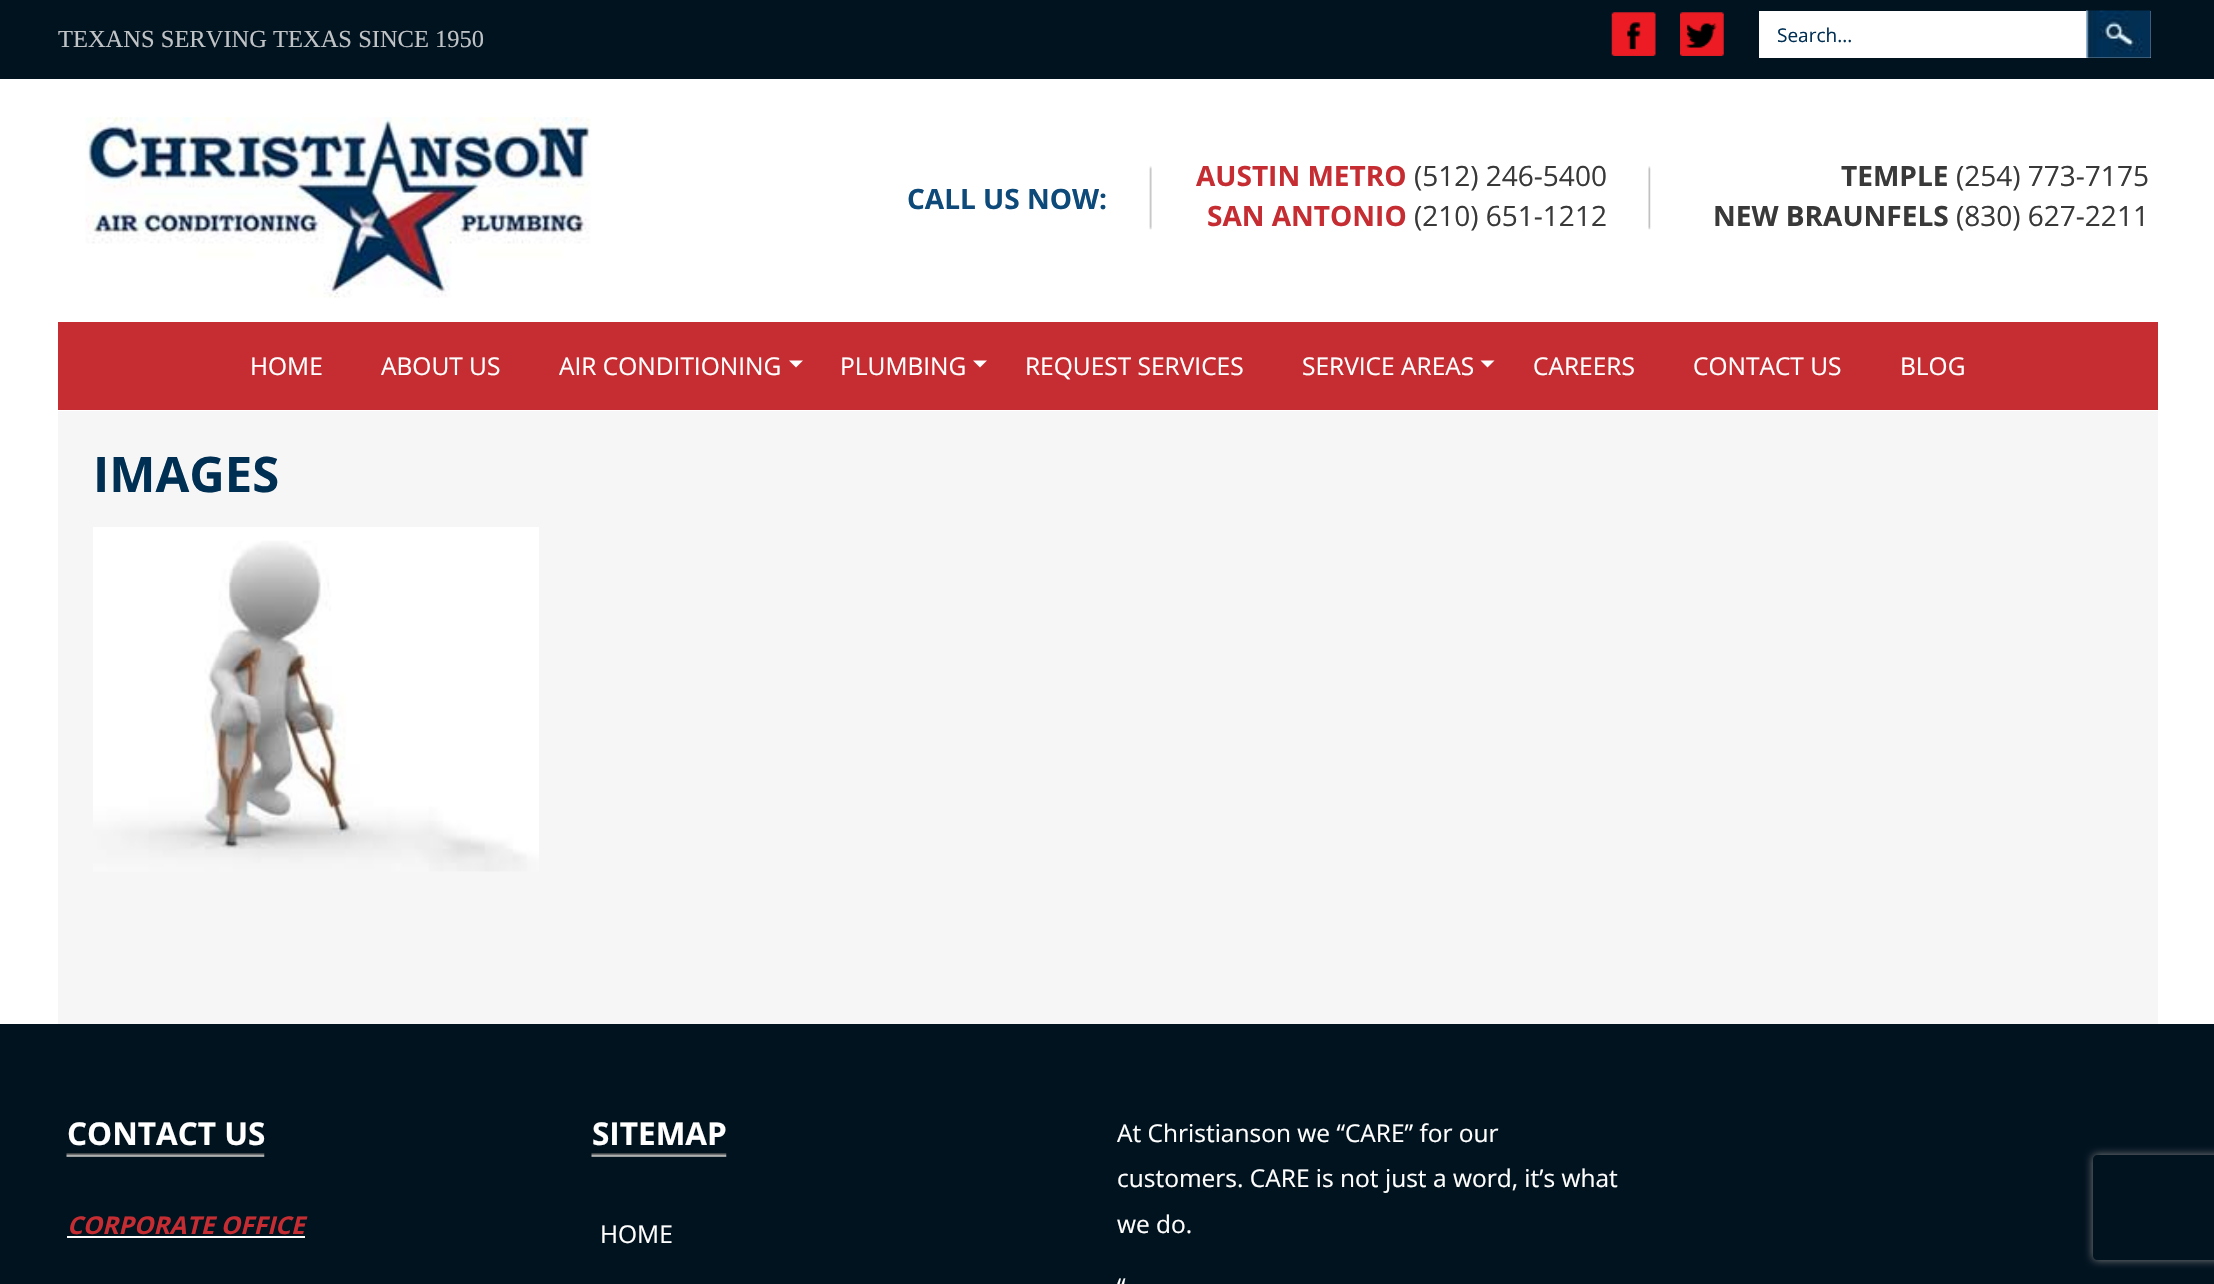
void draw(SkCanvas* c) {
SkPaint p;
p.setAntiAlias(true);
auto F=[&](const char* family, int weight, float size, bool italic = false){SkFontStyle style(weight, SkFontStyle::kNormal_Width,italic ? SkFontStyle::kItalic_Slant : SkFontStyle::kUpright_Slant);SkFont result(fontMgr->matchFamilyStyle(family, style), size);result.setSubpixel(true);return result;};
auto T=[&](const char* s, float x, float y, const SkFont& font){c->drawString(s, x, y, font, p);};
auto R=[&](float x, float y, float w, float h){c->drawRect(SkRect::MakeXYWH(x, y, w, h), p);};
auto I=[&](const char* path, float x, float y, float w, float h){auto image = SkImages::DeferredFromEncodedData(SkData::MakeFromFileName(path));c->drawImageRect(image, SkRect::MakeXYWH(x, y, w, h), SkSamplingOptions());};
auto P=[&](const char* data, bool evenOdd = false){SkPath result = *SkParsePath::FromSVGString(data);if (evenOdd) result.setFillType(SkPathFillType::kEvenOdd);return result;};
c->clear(0xffffffff);
p.setColor(0xff021320);
R(0,0,2214,79);
auto f1 = F("Liberation Serif",400,24.5);
p.setColor(0xffbfc3c6);
T("TEXANS SERVING TEXAS SINCE 1950",58,47,f1);
I("1.png",1611,12,45,44);
I("2.png",1680,12,44,44);
p.setColor(0xffffffff);
R(1759,11,327,47);
auto f2 = F("Open Sans",400,19);
p.setColor(0xff002f54);
T("Search...",1777,42,f2);
p.setColor(0xffefefef);
R(2086,11,65,47);
I("3.png",2086,10,65,48);
I("4.png",85,117,506,181);
I("5.png",1149,166,3,64);
auto f3 = F("Open Sans",700,28);
p.setColor(0xff0d4a79);
T("CALL US NOW:",907,209,f3);
I("6.png",1648,166,3,64);
p.setColor(0xffc52d32);
T("AUSTIN METRO",1196,186,f3);
auto f4 = F("Open Sans",400,28);
p.setColor(0xff393939);
T("(512) 246-5400",1414,186,f4);
p.setColor(0xffc52d32);
T("SAN ANTONIO",1207,226,f3);
p.setColor(0xff393939);
T("(210) 651-1212",1414,226,f4);
T("TEMPLE",1841,186,f3);
T("(254) 773-7175",1956,186,f4);
T("NEW BRAUNFELS",1713,226,f3);
T("(830) 627-2211",1956,226,f4);
p.setColor(0xffc52d32);
R(58,322,2100,88);
auto f5 = F("Open Sans",400,24.5);
p.setColor(0xffffffff);
T("HOME",250,375,f5);
T("ABOUT US",381,375,f5);
T("AIR CONDITIONING",559,375,f5);
c->drawPath(P("M789 360.5h14l-7 7z"),p);
T("PLUMBING",840,375,f5);
c->drawPath(P("M973 360.5h14l-7 7z"),p);
T("REQUEST SERVICES",1025,375,f5);
T("SERVICE AREAS",1302,375,f5);
c->drawPath(P("M1480.5 360.5h14l-7 7z"),p);
T("CAREERS",1533,375,f5);
T("CONTACT US",1693,375,f5);
T("BLOG",1900,375,f5);
p.setColor(0xfff6f6f6);
R(58,411,2100,613);
auto f6 = F("Open Sans",700,49);
p.setColor(0xff002f54);
T("IMAGES",93,492,f6);
I("7.png",93,527,446,345);
p.setColor(0xff021320);
R(0,1024,2214,260);
I("8.png",66,1153,199,4);
auto f7 = F("Open Sans",700,31.5);
p.setColor(0xffffffff);
T("CONTACT US",67,1145,f7);
auto f8 = F("Open Sans",700,24.5,true);
p.setColor(0xffc52d32);
T("CORPORATE OFFICE",67,1234,f8);
p.setColor(0xffffffff);
R(67,1236,238,2);
I("9.png",591,1153,136,4);
T("SITEMAP",592,1145,f7);
T("HOME",600,1243,f5);
T("At Christianson we “CARE” for our",1117,1142,f5);
T("customers. CARE is not just a word, it’s what",1117,1187,f5);
T("we do.",1117,1233,f5);
T("“",1117,1296,f5);
c->save();
c->clipPath(P("M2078 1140h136v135h-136zm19 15h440c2 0 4 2 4 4v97c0 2-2 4-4 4h-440c-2 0-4-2-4-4v-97c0-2 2-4 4-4z",true),true);
p.setColor(0xff808080);
p.setMaskFilter(SkMaskFilter::MakeBlur(kNormal_SkBlurStyle, 4.5));
c->drawRoundRect(SkRect::MakeXYWH(2093,1155,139,105),4,4,p);
p.setMaskFilter(nullptr);
c->restore();
}
